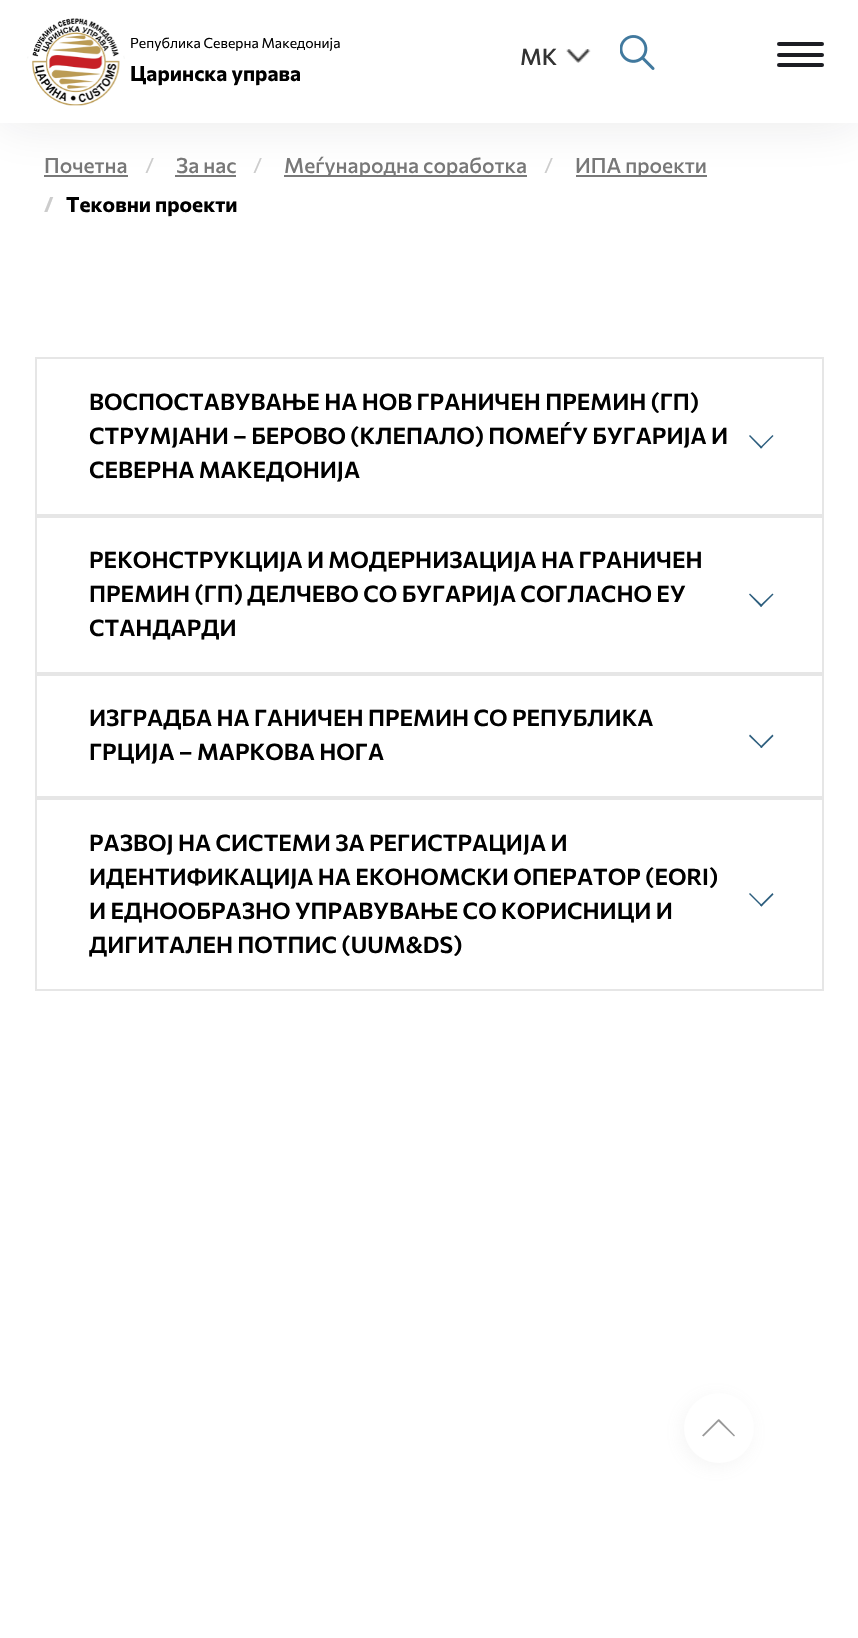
void draw(SkCanvas* c) {
SkPaint p;
p.setAntiAlias(true);
auto F=[&](const char* family, int weight, float size, bool italic = false){SkFontStyle style(weight, SkFontStyle::kNormal_Width,italic ? SkFontStyle::kItalic_Slant : SkFontStyle::kUpright_Slant);SkFont result(fontMgr->matchFamilyStyle(family, style), size);result.setSubpixel(true);return result;};
auto T=[&](const char* s, float x, float y, const SkFont& font){c->drawString(s, x, y, font, p);};
auto R=[&](float x, float y, float w, float h){c->drawRect(SkRect::MakeXYWH(x, y, w, h), p);};
auto Q=[&](float x, float y, float w, float h, float radius){c->drawRoundRect(SkRect::MakeXYWH(x, y, w, h), radius, radius, p);};
auto I=[&](const char* path, float x, float y, float w, float h){auto image = SkImages::DeferredFromEncodedData(SkData::MakeFromFileName(path));c->drawImageRect(image, SkRect::MakeXYWH(x, y, w, h), SkSamplingOptions());};
auto P=[&](const char* data, bool evenOdd = false){SkPath result = *SkParsePath::FromSVGString(data);if (evenOdd) result.setFillType(SkPathFillType::kEvenOdd);return result;};
c->clear(0xffffffff);
p.setColor(0xff777777);
R(44,175,84,2);
R(175,175,61,2);
R(284,175,243,2);
R(576,175,131,2);
p.setColor(0x1a1c1d23);
p.setMaskFilter(SkMaskFilter::MakeBlur(kNormal_SkBlurStyle, 26));
c->drawRect(SkRect::MakeXYWH(0,0,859,123),p);
p.setMaskFilter(nullptr);
p.setColor(0xffffffff);
R(0,0,858,123);
I("1.png",27,18,98,88);
auto f1 = F("Commissioner",400,14);
p.setColor(0xff000000);
T("Република Северна Македонија",130,48,f1);
auto f2 = F("Commissioner",700,21);
T("Царинска управа",130,81,f2);
auto f3 = F("Commissioner",500,22.75);
p.setColor(0xff333333);
T("MK",520,65,f3);
I("2.png",566,49,25,14);
I("3.png",620,35,35,35);
p.setColor(0xff1c1d23);
Q(777,42,47,4,2);
Q(777,53,47,4,2);
Q(777,63,47,4,2);
auto f4 = F("Commissioner",500,21);
p.setColor(0xff777777);
T("Почетна",44,173,f4);
auto f5 = F("Commissioner",400,21);
p.setColor(0xffcccccc);
T("/",145,173,f5);
p.setColor(0xff777777);
T("За нас",176,173,f4);
p.setColor(0xffcccccc);
T("/",253,173,f5);
p.setColor(0xff777777);
T("Меѓународна соработка",284,173,f4);
p.setColor(0xffcccccc);
T("/",544,173,f5);
p.setColor(0xff777777);
T("ИПА проекти",575,173,f4);
p.setColor(0xffcccccc);
T("/",44,212,f2);
p.setColor(0xff000000);
T("Тековни проекти",66,212,f2);
p.setStroke(true);
p.setStrokeWidth(2);
p.setColor(0xffe6e6e6);
c->drawRect(SkRect::MakeXYWH(36,358,787,157),p);
auto f6 = F("Commissioner",600,22.75);
p.setStroke(false);
p.setColor(0xff000000);
T("ВОСПОСТАВУВАЊЕ НА НОВ ГРАНИЧЕН ПРЕМИН (ГП)",89,410,f6);
T("СТРУМЈАНИ – БЕРОВО (КЛЕПАЛО) ПОМЕЃУ БУГАРИЈА И",89,444,f6);
p.setColor(0xff2c5d7d);
c->drawPath(P("M772.5 435l1 1l-12.5 12.5l-1-1z"),p);
c->drawPath(P("M750 435l12.5 12.5l-1.5 1l-12-12.5z"),p);
p.setColor(0xff000000);
T("СЕВЕРНА МАКЕДОНИЈА",89,478,f6);
p.setStroke(true);
p.setColor(0xffe6e6e6);
c->drawRect(SkRect::MakeXYWH(36,517,787,156),p);
p.setStroke(false);
p.setColor(0xff000000);
T("РЕКОНСТРУКЦИЈА И МОДЕРНИЗАЦИЈА НА ГРАНИЧЕН",89,568,f6);
T("ПРЕМИН (ГП) ДЕЛЧЕВО СО БУГАРИЈА СОГЛАСНО ЕУ",89,602,f6);
p.setColor(0xff2c5d7d);
c->drawPath(P("M772.5 593.5l1 1l-12.5 12.5l-1-1.5z"),p);
c->drawPath(P("M750 593.5l12.5 12l-1.5 1.5l-12-12.5z"),p);
p.setColor(0xff000000);
T("СТАНДАРДИ",89,636,f6);
p.setStroke(true);
p.setColor(0xffe6e6e6);
c->drawRect(SkRect::MakeXYWH(36,675,787,122),p);
p.setStroke(false);
p.setColor(0xff000000);
T("ИЗГРАДБА НА ГАНИЧЕН ПРЕМИН СО РЕПУБЛИКА",89,726,f6);
p.setColor(0xff2c5d7d);
c->drawPath(P("M772.5 734.5l1 1.5l-12 12l-1.5-1z"),p);
c->drawPath(P("M750 734.5l12.5 12.5l-1 1l-12.5-12z"),p);
p.setColor(0xff000000);
T("ГРЦИЈА – МАРКОВА НОГА",89,760,f6);
p.setStroke(true);
p.setColor(0xffe6e6e6);
c->drawRect(SkRect::MakeXYWH(36,799,787,191),p);
p.setStroke(false);
p.setColor(0xff000000);
T("РАЗВОЈ НА СИСТЕМИ ЗА РЕГИСТРАЦИЈА И",89,851,f6);
T("ИДЕНТИФИКАЦИЈА НА ЕКОНОМСКИ ОПЕРАТОР (EORI)",89,885,f6);
p.setColor(0xff2c5d7d);
c->drawPath(P("M772.5 893l1 1.5l-12 12l-1.5-1z"),p);
c->drawPath(P("M750 893l12.5 12.5l-1 1l-12.5-12.5z"),p);
p.setColor(0xff000000);
T("И EДНООБРАЗНО УПРАВУВАЊЕ СО КОРИСНИЦИ И",89,919,f6);
T("ДИГИТАЛЕН ПОТПИС (UUM&DS)",89,953,f6);
p.setColor(0x1a999999);
p.setMaskFilter(SkMaskFilter::MakeBlur(kNormal_SkBlurStyle, 9));
c->drawRoundRect(SkRect::MakeXYWH(681,1397,70,70),35,35,p);
p.setMaskFilter(nullptr);
p.setColor(0xffffffff);
c->drawPath(P("M684 1428c0-19 16-35 35-35c20 0 35 16 35 35c0 19-15 35-35 35c-19 0-35-16-35-35z"),p);
p.setColor(0xff999999);
c->drawPath(P("M735 1435.5l-1 1l-15.5-15l-15 15l-1.5-1l16-16c.5-.5 1-.5 1.5 0z"),p);
}
